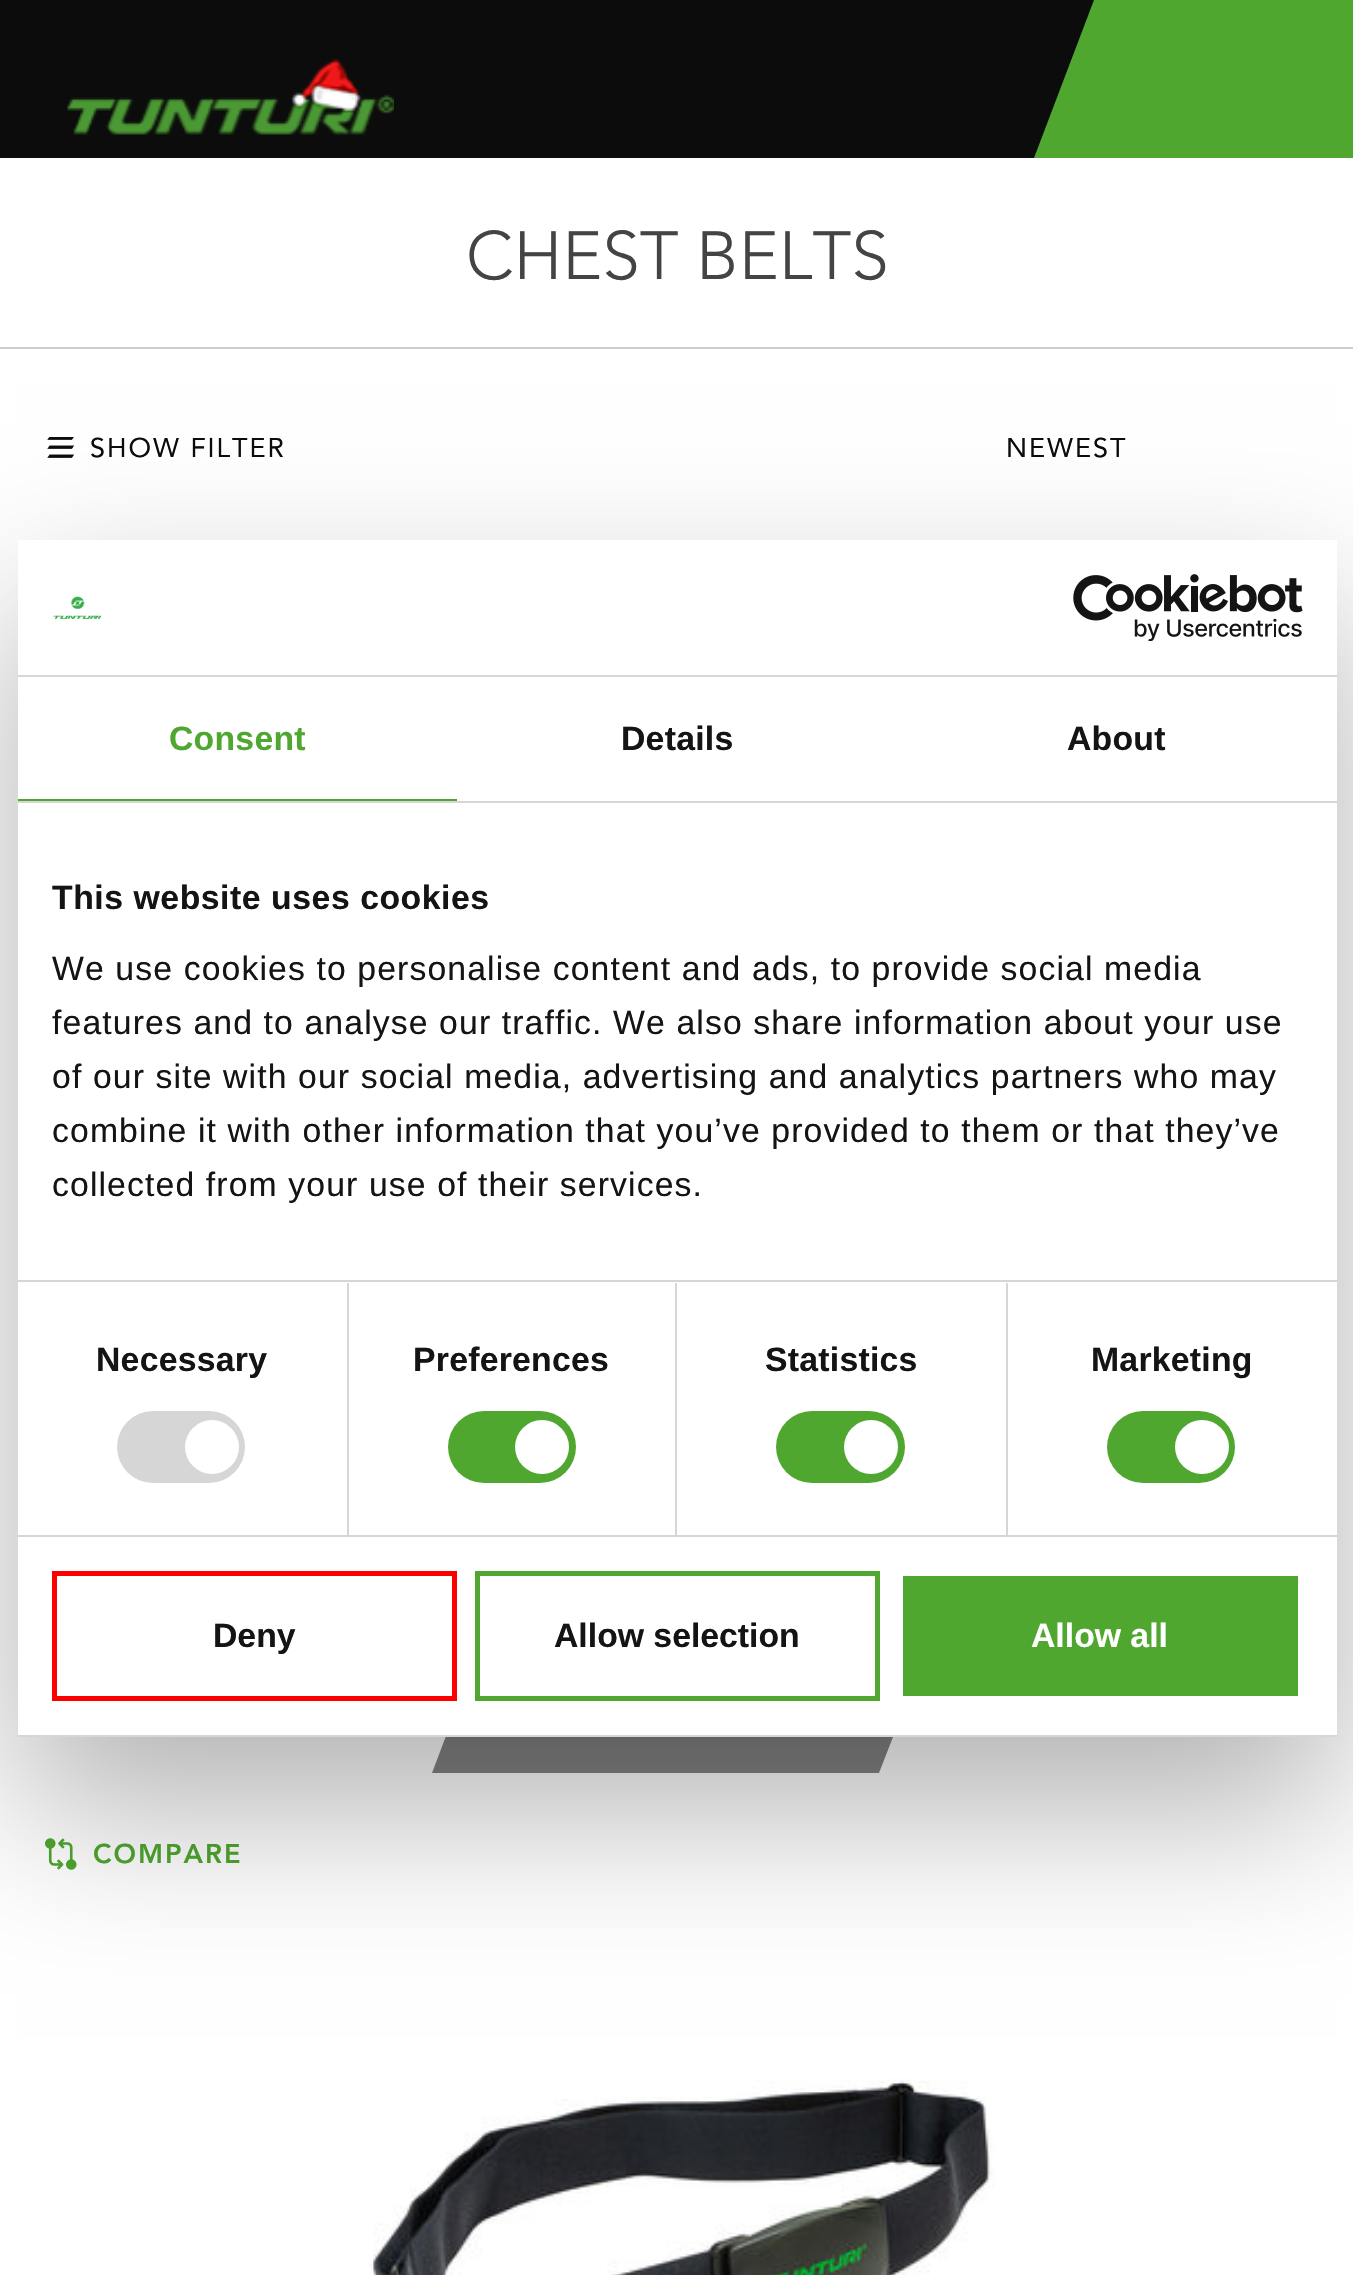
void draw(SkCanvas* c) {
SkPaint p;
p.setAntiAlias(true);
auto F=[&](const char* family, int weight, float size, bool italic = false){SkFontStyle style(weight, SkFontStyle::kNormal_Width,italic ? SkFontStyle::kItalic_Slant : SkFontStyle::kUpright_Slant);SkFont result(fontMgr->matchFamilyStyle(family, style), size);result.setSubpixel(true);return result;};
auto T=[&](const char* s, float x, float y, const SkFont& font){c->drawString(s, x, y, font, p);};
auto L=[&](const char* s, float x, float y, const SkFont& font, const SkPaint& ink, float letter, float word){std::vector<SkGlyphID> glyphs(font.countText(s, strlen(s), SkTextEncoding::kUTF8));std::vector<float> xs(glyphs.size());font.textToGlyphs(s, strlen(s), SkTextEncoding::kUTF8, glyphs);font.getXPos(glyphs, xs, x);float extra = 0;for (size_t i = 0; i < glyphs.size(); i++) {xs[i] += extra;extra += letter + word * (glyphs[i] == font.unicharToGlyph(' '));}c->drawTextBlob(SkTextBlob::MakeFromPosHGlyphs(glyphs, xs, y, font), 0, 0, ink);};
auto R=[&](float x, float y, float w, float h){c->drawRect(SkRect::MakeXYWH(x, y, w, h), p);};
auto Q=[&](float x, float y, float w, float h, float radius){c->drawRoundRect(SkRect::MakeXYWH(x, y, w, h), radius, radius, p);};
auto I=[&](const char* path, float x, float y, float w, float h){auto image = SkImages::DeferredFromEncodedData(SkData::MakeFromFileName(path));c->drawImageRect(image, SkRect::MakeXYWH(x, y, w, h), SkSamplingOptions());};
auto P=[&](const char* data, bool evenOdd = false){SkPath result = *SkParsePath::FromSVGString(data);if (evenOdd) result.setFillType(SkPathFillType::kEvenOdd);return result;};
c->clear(0xffffffff);
p.setColor(0xff0c0c0c);
R(0,0,1094,158);
I("1.png",67,58,327,77);
p.setColor(0xff4fa730);
c->drawPath(P("M1094 0h90l-60 158h-90z"),p);
R(1124,0,229,158);
p.setColor(0xffcccccc);
R(0,347,1353,2);
auto f1 = F("Avenir",300,67.5);
p.setColor(0xff444444);
T("CHEST BELTS",466,279,f1);
I("2.png",47,437,27,21);
auto f2 = F("Avenir",400,27);
p.setColor(0xff0c0c0c);
L("SHOW FILTER",90,457,f2,p,2,0);
L("NEWEST",1006,457,f2,p,2,0);
p.setColor(0xff848484);
R(522,1737,281,36);
c->drawPath(P("M466 1683h90l-34 90h-90z"),p);
c->drawPath(P("M824 1683h90l-35 90h-90z"),p);
I("3.png",45,1838,32,32);
auto f3 = F("Avenir",900,27);
p.setColor(0xff4fa730);
L("COMPARE",93,1863,f3,p,2,0);
I("4.png",369,2079,626,196);
p.setColor(0x4d000000);
p.setMaskFilter(SkMaskFilter::MakeBlur(kNormal_SkBlurStyle, 76.5));
c->drawRect(SkRect::MakeXYWH(18,612,1319,1197),p);
p.setMaskFilter(nullptr);
p.setColor(0xffffffff);
R(18,540,1319,1195);
p.setColor(0xffd6d6d6);
R(18,675,1319,2);
I("5.png",53,596,49,23);
I("6.png",1073,574,230,67);
R(18,801,1319,2);
p.setColor(0xff50a72f);
R(18,799,439,2);
auto f4 = F("Liberation Sans",700,33.75);
p.setColor(0xff4fa730);
L("Consent",169,750,f4,p,.25,0);
p.setColor(0xff141414);
L("Details",621,750,f4,p,.25,0);
L("About",1067,750,f4,p,.25,0);
p.setColor(0xffd6d6d6);
R(18,1280,1319,2);
p.setColor(0xff141414);
L("This website uses cookies",52,909,f4,p,.55,0);
auto f5 = F("Liberation Sans",400,33.75);
L("We use cookies to personalise content and ads, to provide social media",52,980,f5,p,1.12,0);
L("features and to analyse our traffic. We also share information about your use",52,1034,f5,p,1.12,0);
L("of our site with our social media, advertising and analytics partners who may",52,1088,f5,p,1.12,0);
L("combine it with other information that you’ve provided to them or that they’ve",52,1142,f5,p,1.12,0);
L("collected from your use of their services.",52,1196,f5,p,1.12,0);
p.setColor(0xffd6d6d6);
R(18,1535,1319,2);
R(347,1283,2,252);
p.setColor(0xff141414);
L("Necessary",96,1371,f4,p,.25,0);
p.setColor(0xffd6d6d6);
Q(117,1411,128,72,36);
p.setColor(0xffffffff);
c->drawCircle(212,1447,27,p);
p.setColor(0xffd6d6d6);
R(675,1283,2,252);
p.setColor(0xff141414);
L("Preferences",413,1371,f4,p,.25,0);
p.setColor(0xff50a72f);
Q(448,1411,128,72,36);
p.setColor(0xffffffff);
c->drawCircle(542,1447,27,p);
p.setColor(0xffd6d6d6);
R(1006,1283,2,252);
p.setColor(0xff141414);
L("Statistics",765,1371,f4,p,.25,0);
p.setColor(0xff50a72f);
Q(776,1411,129,72,36);
p.setColor(0xffffffff);
c->drawCircle(871,1447,27,p);
p.setColor(0xff141414);
L("Marketing",1091,1371,f4,p,.25,0);
p.setColor(0xff50a72f);
Q(1107,1411,128,72,36);
p.setColor(0xffffffff);
c->drawCircle(1202,1447,27,p);
p.setColor(0xffd6d6d6);
R(18,1735,1319,2);
p.setStroke(true);
p.setStrokeWidth(5);
p.setColor(0xffff0000);
c->drawRect(SkRect::MakeXYWH(54.5,1573.5,400,125),p);
p.setStroke(false);
p.setColor(0xff141414);
T("Deny",213,1647,f4);
p.setStroke(true);
p.setColor(0xff50a72f);
c->drawRect(SkRect::MakeXYWH(477.5,1573.5,400,125),p);
p.setStroke(false);
p.setColor(0xff141414);
T("Allow selection",554,1647,f4);
p.setColor(0xff50a72f);
R(903,1576,395,120);
p.setColor(0xffffffff);
T("Allow all",1031,1647,f4);
}
